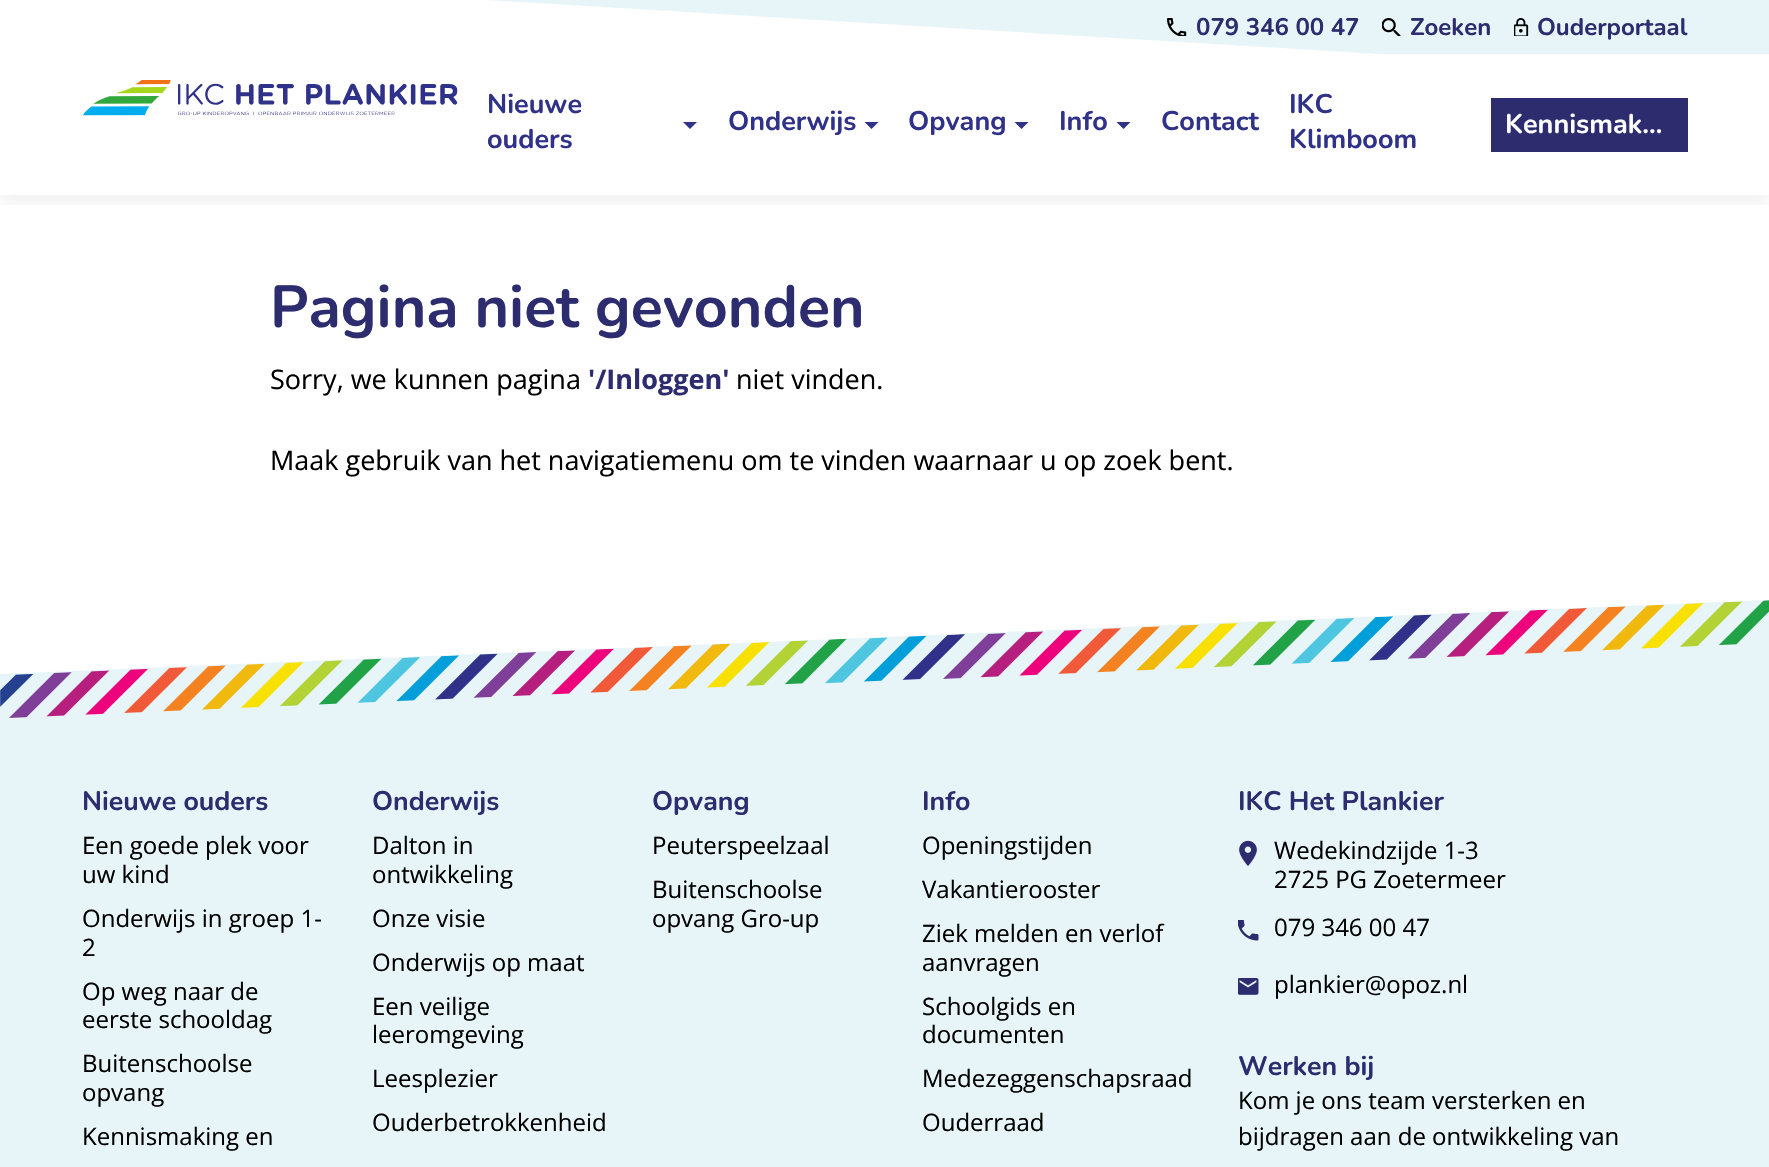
void draw(SkCanvas* c) {
SkPaint p;
p.setAntiAlias(true);
auto F=[&](const char* family, int weight, float size, bool italic = false){SkFontStyle style(weight, SkFontStyle::kNormal_Width,italic ? SkFontStyle::kItalic_Slant : SkFontStyle::kUpright_Slant);SkFont result(fontMgr->matchFamilyStyle(family, style), size);result.setSubpixel(true);return result;};
auto T=[&](const char* s, float x, float y, const SkFont& font){c->drawString(s, x, y, font, p);};
auto R=[&](float x, float y, float w, float h){c->drawRect(SkRect::MakeXYWH(x, y, w, h), p);};
auto I=[&](const char* path, float x, float y, float w, float h){auto image = SkImages::DeferredFromEncodedData(SkData::MakeFromFileName(path));c->drawImageRect(image, SkRect::MakeXYWH(x, y, w, h), SkSamplingOptions());};
auto P=[&](const char* data, bool evenOdd = false){SkPath result = *SkParsePath::FromSVGString(data);if (evenOdd) result.setFillType(SkPathFillType::kEvenOdd);return result;};
c->clear(0xffffffff);
c->save();
c->clipRect(SkRect::MakeXYWH(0,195,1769,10));
p.setColor(0x0d000000);
p.setMaskFilter(SkMaskFilter::MakeBlur(kNormal_SkBlurStyle, 7.5));
c->drawRect(SkRect::MakeXYWH(0,8,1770,195),p);
p.setMaskFilter(nullptr);
c->restore();
I("1.png",83,80,375,36);
p.setColor(0xffe7f5f8);
c->drawPath(P("M488 0l892 54h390v-54z"),p);
I("2.png",1167,18,20,18);
auto f1 = F("Nunito",200,24);
p.setColor(0xff2c2c6f);
T("079 346 00 47",1196,35,f1);
I("3.png",1382,18,19,18);
T("Zoeken",1410,35,f1);
I("4.png",1514,18,15,18);
T("Ouderportaal",1537,35,f1);
auto f2 = F("Nunito",200,27);
p.setColor(0xff303188);
T("Nieuwe",487,113,f2);
T("ouders",487,148,f2);
c->save();
c->clipRect(SkRect::MakeXYWH(683,122,15,7));
c->drawPath(P("M682.5 121.5l7.5 7.5l7.5-7.5z"),p);
c->restore();
T("Onderwijs",728,130,f2);
c->save();
c->clipRect(SkRect::MakeXYWH(864,122,15,7));
c->drawPath(P("M864 121.5l7.5 7.5l7.5-7.5z"),p);
c->restore();
T("Opvang",908,130,f2);
c->save();
c->clipRect(SkRect::MakeXYWH(1014,122,15,7));
c->drawPath(P("M1014 121.5l7.5 7.5l7.5-7.5z"),p);
c->restore();
T("Info",1059,130,f2);
c->save();
c->clipRect(SkRect::MakeXYWH(1116,122,15,7));
c->drawPath(P("M1116 121.5l7.5 7.5l7.5-7.5z"),p);
c->restore();
T("Contact",1161,130,f2);
T("IKC",1289,113,f2);
T("Klimboom",1289,148,f2);
p.setColor(0xff2c2c6f);
R(1491,98,197,54);
p.setColor(0xffffffff);
T("Kennismak…",1505,133,f2);
auto f3 = F("Nunito",200,59.1);
p.setColor(0xff2c2c6f);
T("Pagina niet gevonden",270,327,f3);
auto f4 = F("Open Sans",400,27);
p.setColor(0xff000000);
T("Sorry, we kunnen pagina",270,389,f4);
auto f5 = F("Open Sans",700,27);
p.setColor(0xff2c2c6f);
T("'/Inloggen'",588,389,f5);
p.setColor(0xff000000);
T("niet vinden.",736,389,f4);
T("Maak gebruik van het navigatiemenu om te vinden waarnaar u op zoek bent.",270,470,f4);
p.setColor(0xffe7f5f8);
c->drawPath(P("M0 674v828h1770v-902z"),p);
I("5.png",0,600,1769,118);
auto f6 = F("Nunito",200,26.75);
p.setColor(0xff2c2c6f);
T("Nieuwe ouders",82,810,f6);
auto f7 = F("Open Sans",400,24);
p.setColor(0xff000000);
T("Een goede plek voor",82,854,f7);
T("uw kind",82,883,f7);
T("Onderwijs in groep 1-",82,927,f7);
T("2",82,956,f7);
T("Op weg naar de",82,1000,f7);
T("eerste schooldag",82,1028,f7);
T("Buitenschoolse",82,1072,f7);
T("opvang",82,1101,f7);
T("Kennismaking en",82,1145,f7);
p.setColor(0xff2c2c6f);
T("Onderwijs",372,810,f6);
p.setColor(0xff000000);
T("Dalton in",372,854,f7);
T("ontwikkeling",372,883,f7);
T("Onze visie",372,927,f7);
T("Onderwijs op maat",372,971,f7);
T("Een veilige",372,1015,f7);
T("leeromgeving",372,1043,f7);
T("Leesplezier",372,1087,f7);
T("Ouderbetrokkenheid",372,1131,f7);
p.setColor(0xff2c2c6f);
T("Opvang",652,810,f6);
p.setColor(0xff000000);
T("Peuterspeelzaal",652,854,f7);
T("Buitenschoolse",652,898,f7);
T("opvang Gro-up",652,927,f7);
p.setColor(0xff2c2c6f);
T("Info",922,810,f6);
p.setColor(0xff000000);
T("Openingstijden",922,854,f7);
T("Vakantierooster",922,898,f7);
T("Ziek melden en verlof",922,942,f7);
T("aanvragen",922,971,f7);
T("Schoolgids en",922,1015,f7);
T("documenten",922,1043,f7);
T("Medezeggenschapsraad",922,1087,f7);
T("Ouderraad",922,1131,f7);
p.setColor(0xff2c2c6f);
T("IKC Het Plankier",1238,810,f6);
I("6.png",1239,840,18,26);
p.setColor(0xff000000);
T("Wedekindzijde 1-3",1274,859,f7);
T("2725 PG Zoetermeer",1274,888,f7);
I("7.png",1238,920,21,21);
T("079 346 00 47",1274,936,f7);
I("8.png",1238,978,21,17);
T("plankier@opoz.nl",1274,993,f7);
p.setColor(0xff2c2c6f);
T("Werken bij",1238,1075,f6);
p.setColor(0xff000000);
T("Kom je ons team versterken en",1238,1109,f7);
T("bijdragen aan de ontwikkeling van",1238,1145,f7);
}
